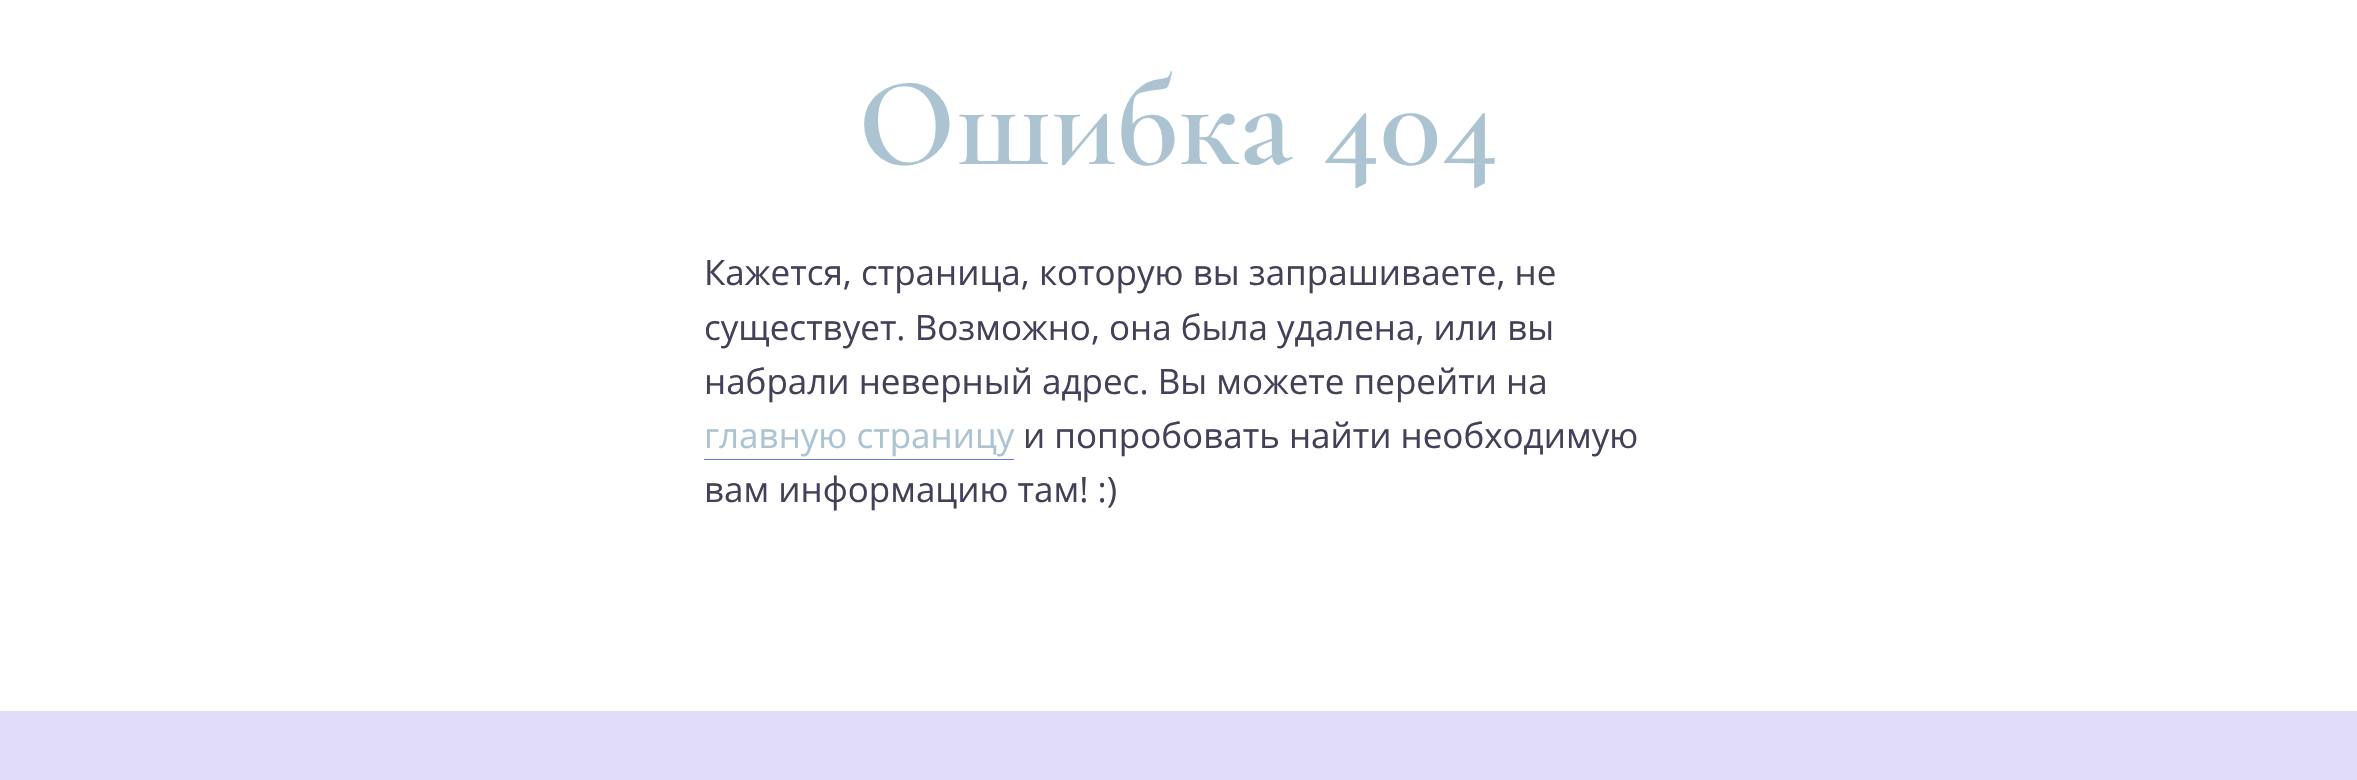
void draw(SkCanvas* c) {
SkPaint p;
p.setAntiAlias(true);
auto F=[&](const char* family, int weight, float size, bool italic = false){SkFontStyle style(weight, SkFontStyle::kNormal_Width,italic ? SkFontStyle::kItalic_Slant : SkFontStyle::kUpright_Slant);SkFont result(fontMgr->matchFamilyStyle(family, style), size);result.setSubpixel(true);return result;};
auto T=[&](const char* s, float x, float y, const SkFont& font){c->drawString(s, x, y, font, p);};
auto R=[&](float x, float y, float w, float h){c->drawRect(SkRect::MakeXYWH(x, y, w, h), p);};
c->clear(0xffffffff);
auto f1 = F("Cormorant Garamond",600,127.5);
p.setColor(0xffacc4d2);
T("Ошибка 404",858,164,f1);
auto f2 = F("Open Sans",400,35);
p.setColor(0xff444058);
T("Кажется, страница, которую вы запрашиваете, не",704,285,f2);
T("существует. Возможно, она была удалена, или вы",704,340,f2);
T("набрали неверный адрес. Вы можете перейти на",704,394,f2);
p.setColor(0xffacc4d2);
T("главную страницу",704,448,f2);
p.setColor(0xff6976e0);
R(704,459,310,1);
p.setColor(0xff444058);
T("и попробовать найти необходимую",1023,448,f2);
T("вам информацию там! :)",704,502,f2);
p.setColor(0xffe1dcf9);
R(0,711,2357,69);
}
